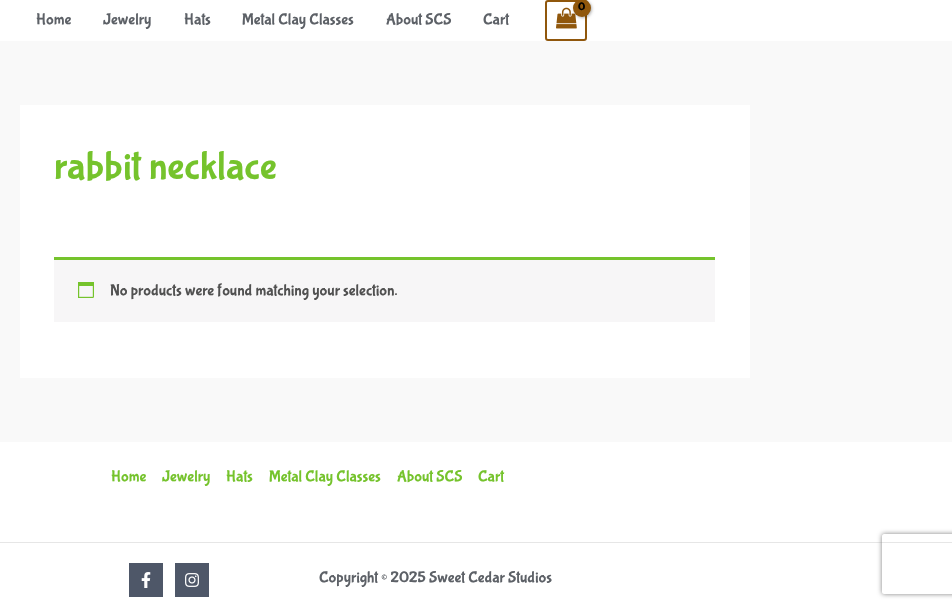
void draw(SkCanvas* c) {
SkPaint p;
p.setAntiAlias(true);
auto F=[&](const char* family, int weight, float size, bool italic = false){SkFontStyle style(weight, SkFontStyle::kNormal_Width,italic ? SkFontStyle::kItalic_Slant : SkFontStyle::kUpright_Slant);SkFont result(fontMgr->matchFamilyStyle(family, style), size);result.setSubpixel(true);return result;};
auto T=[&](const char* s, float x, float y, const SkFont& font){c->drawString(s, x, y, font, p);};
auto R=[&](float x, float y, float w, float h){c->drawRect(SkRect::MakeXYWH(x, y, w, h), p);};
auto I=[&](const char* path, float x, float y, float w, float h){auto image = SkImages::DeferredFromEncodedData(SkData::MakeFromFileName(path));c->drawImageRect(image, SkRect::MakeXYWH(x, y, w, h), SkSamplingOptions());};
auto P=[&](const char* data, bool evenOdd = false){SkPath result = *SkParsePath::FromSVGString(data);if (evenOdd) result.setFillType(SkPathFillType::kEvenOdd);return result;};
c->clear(0xfff9f9f9);
p.setColor(0xffffffff);
R(0,0,952,41);
p.setStroke(true);
p.setStrokeWidth(2);
p.setColor(0xff90570c);
c->drawRoundRect(SkRect::MakeXYWH(546,1,40,39),2,2,p);
I("1.png",556,7,21,22);
p.setStroke(false);
p.setColor(0x4d000000);
p.setMaskFilter(SkMaskFilter::MakeBlur(kNormal_SkBlurStyle, 1.5));
c->drawRoundRect(SkRect::MakeXYWH(574,0,18,18),9,9,p);
p.setMaskFilter(nullptr);
p.setColor(0xff90570c);
c->drawCircle(582,8,9,p);
auto f1 = F("Bubblegum Sans",700,11);
p.setColor(0xff000000);
T("0",578,10,f1);
auto f2 = F("Bubblegum Sans",400,16);
p.setColor(0xff5d6167);
T("Home",36,24,f2);
T("Jewelry",103,24,f2);
T("Hats",184,24,f2);
T("Metal Clay Classes",242,24,f2);
T("About SCS",386,24,f2);
T("Cart",483,24,f2);
p.setColor(0xffffffff);
R(20,105,730,273);
auto f3 = F("Bubblegum Sans",400,40);
p.setColor(0xff75c32c);
T("rabbit necklace",54,178,f3);
p.setColor(0xfff7f6f7);
R(54,260,661,62);
p.setColor(0xff75c32c);
R(54,257,661,3);
I("2.png",78,282,16,16);
p.setColor(0xff515151);
T("No products were found matching your selection.",110,295,f2);
p.setColor(0xffffffff);
R(0,442,952,166);
p.setColor(0xff75c32c);
T("Home",111,481,f2);
T("Jewelry",162,481,f2);
T("Hats",226,481,f2);
T("Metal Clay Classes",269,481,f2);
T("About SCS",397,481,f2);
T("Cart",478,481,f2);
p.setColor(0xffe6e6e6);
R(0,542,952,1);
p.setColor(0xff4e5768);
R(129,563,34,34);
I("3.png",141,572,10,16);
R(175,563,34,34);
I("4.png",185,573,14,14);
p.setColor(0xff5d6167);
T("Copyright © 2025 Sweet Cedar Studios",319,582,f2);
c->save();
c->clipPath(P("M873 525h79v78h-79zm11 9h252c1 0 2 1 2 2v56c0 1-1 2-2 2h-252c-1 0-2-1-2-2v-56c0-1 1-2 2-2z",true),true);
p.setColor(0xff808080);
p.setMaskFilter(SkMaskFilter::MakeBlur(kNormal_SkBlurStyle, 2.5));
c->drawRoundRect(SkRect::MakeXYWH(882,534,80,60),2,2,p);
p.setMaskFilter(nullptr);
c->restore();
}
